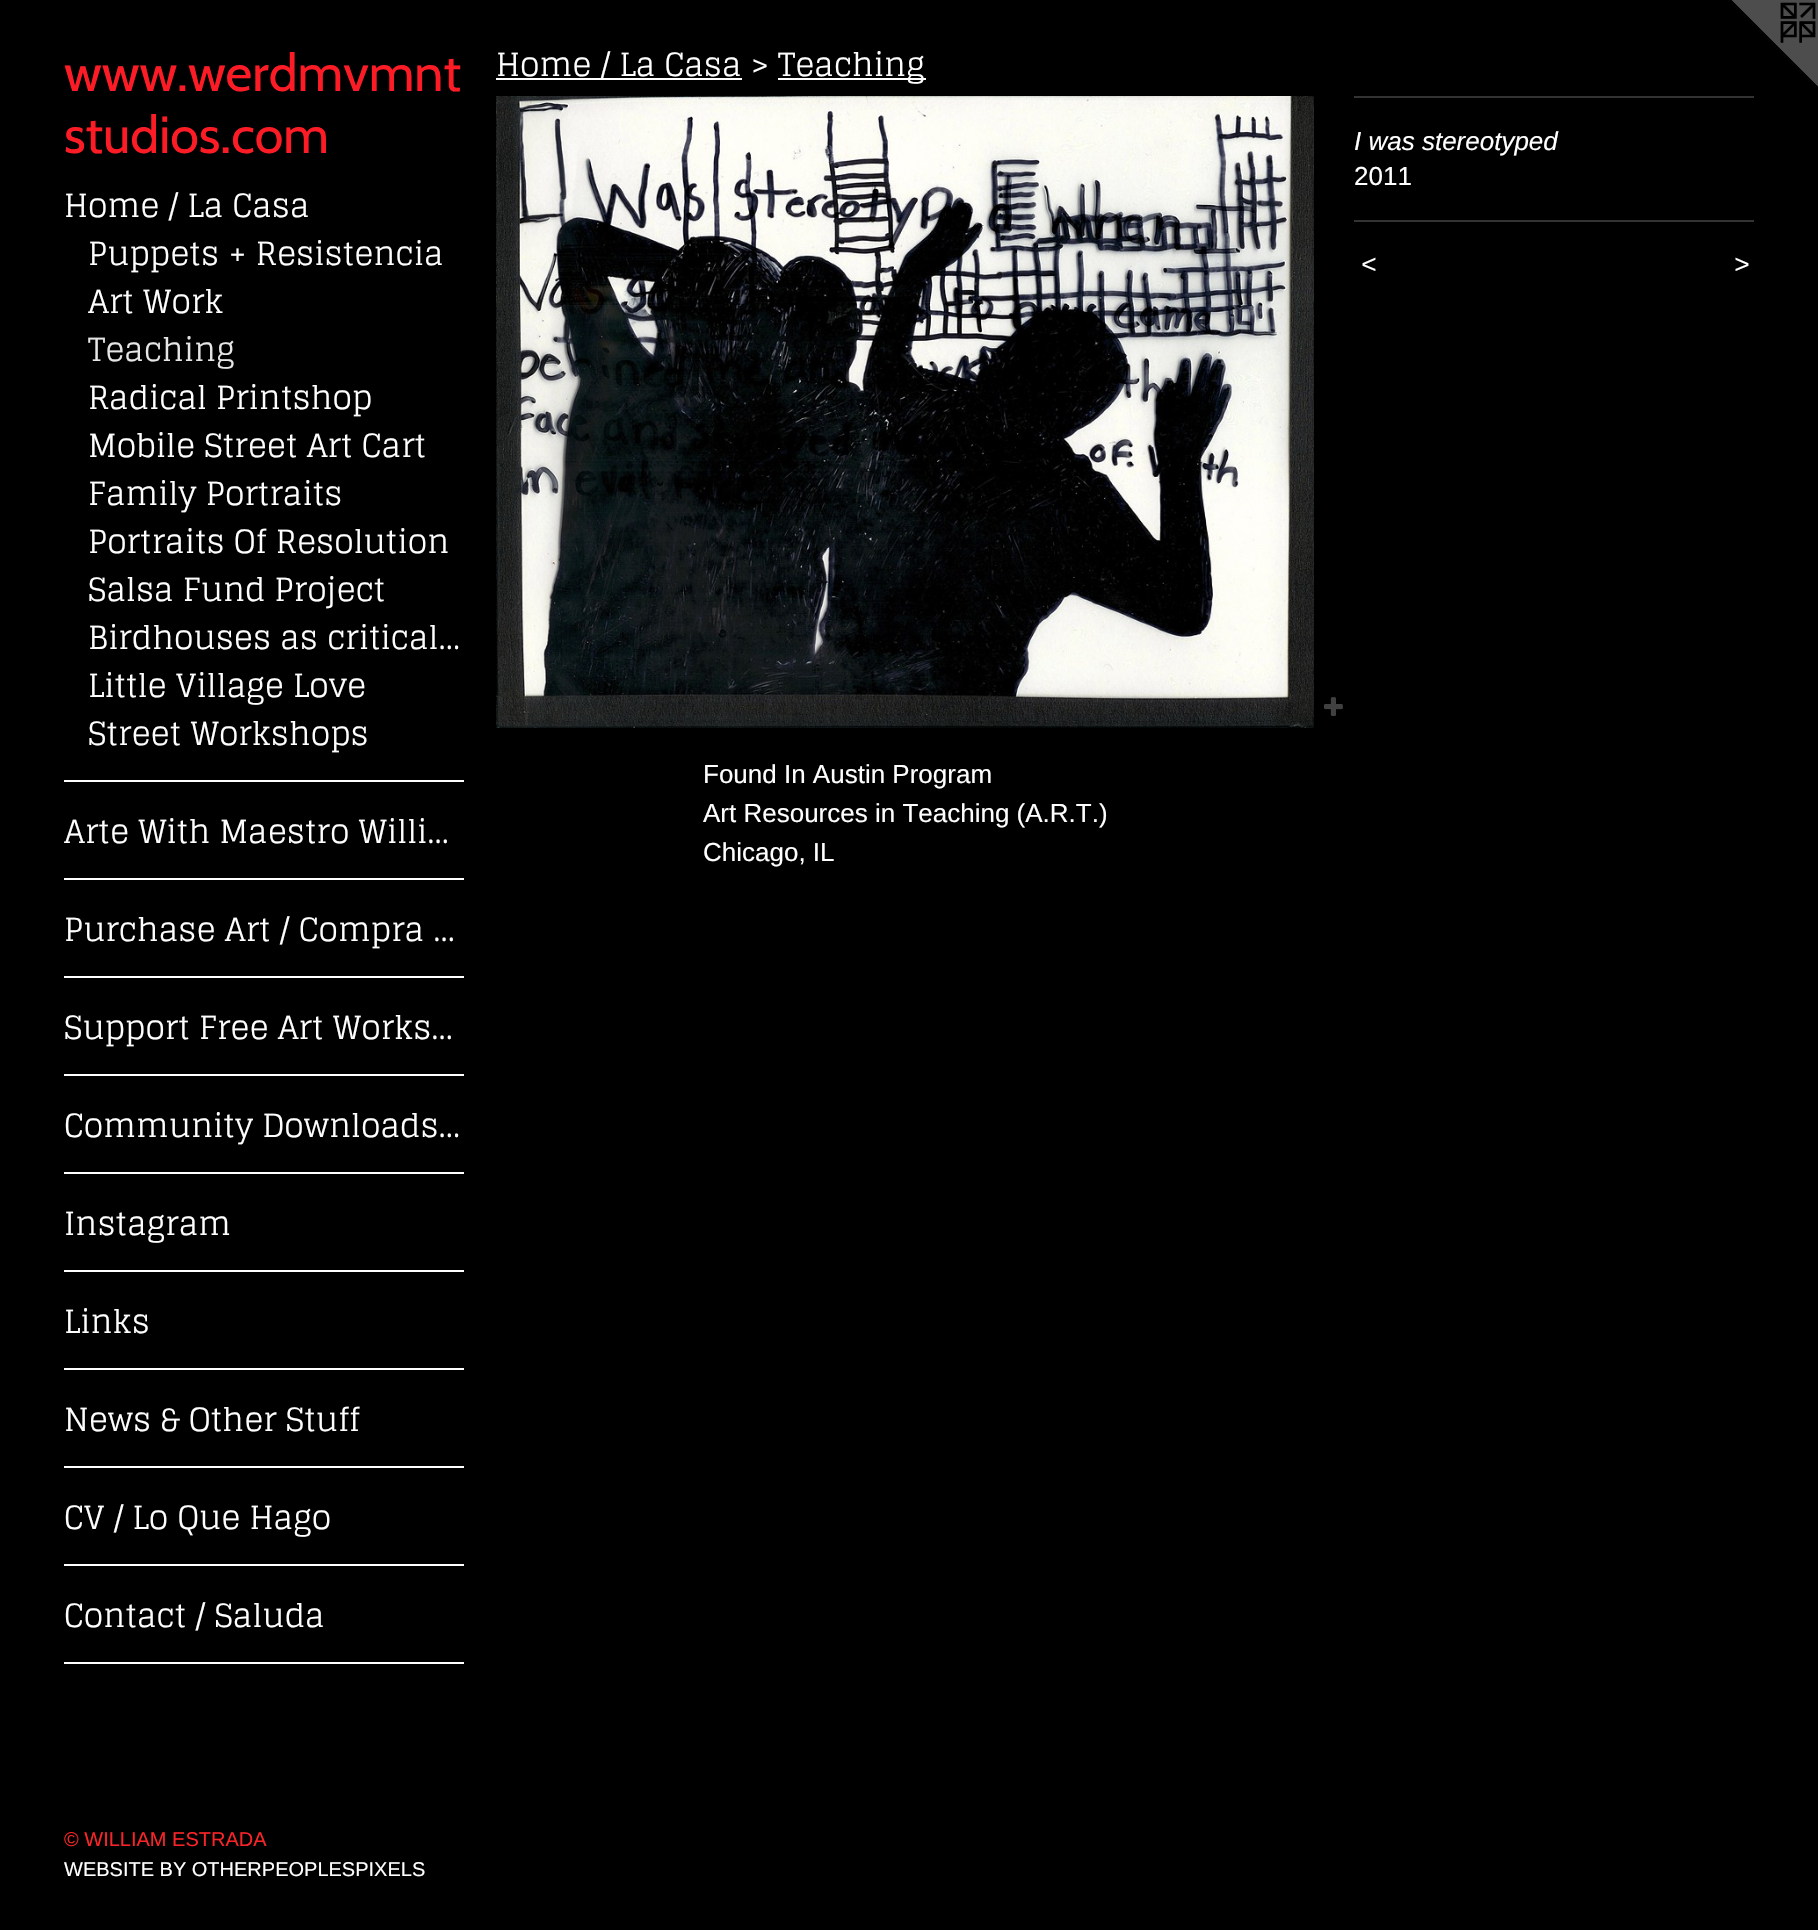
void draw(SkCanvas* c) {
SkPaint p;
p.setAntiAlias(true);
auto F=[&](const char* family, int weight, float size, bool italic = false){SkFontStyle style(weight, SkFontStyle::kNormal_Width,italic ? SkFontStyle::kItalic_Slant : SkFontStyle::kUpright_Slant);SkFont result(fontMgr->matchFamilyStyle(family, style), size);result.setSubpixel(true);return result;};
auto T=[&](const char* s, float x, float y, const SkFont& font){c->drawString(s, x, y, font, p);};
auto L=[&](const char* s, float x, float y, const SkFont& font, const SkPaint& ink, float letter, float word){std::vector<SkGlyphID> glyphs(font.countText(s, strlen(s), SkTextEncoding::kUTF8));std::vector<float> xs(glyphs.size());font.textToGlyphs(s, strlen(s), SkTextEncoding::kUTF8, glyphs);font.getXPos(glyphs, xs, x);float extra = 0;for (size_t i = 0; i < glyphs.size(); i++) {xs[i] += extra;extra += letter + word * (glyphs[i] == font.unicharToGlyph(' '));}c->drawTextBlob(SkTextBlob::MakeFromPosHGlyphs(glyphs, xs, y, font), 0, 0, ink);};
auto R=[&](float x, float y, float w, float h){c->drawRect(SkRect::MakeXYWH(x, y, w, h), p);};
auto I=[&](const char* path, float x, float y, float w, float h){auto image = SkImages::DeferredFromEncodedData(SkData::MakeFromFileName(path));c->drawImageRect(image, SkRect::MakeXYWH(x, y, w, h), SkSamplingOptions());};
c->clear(0xff000000);
auto f1 = F("Cabin",400,52);
p.setColor(0xfffd1c26);
T("www.werdmvmnt",64,91,f1);
T("studios.com",64,153,f1);
auto f2 = F("Glegoo",400,32);
p.setColor(0xffffffff);
T("Home / La Casa",64,217,f2);
T("Puppets + Resistencia",88,265,f2);
T("Art Work",88,313,f2);
p.setColor(0xffe6e6e6);
T("Teaching",88,361,f2);
p.setColor(0xffffffff);
T("Radical Printshop",88,409,f2);
T("Mobile Street Art Cart",88,457,f2);
T("Family Portraits",88,505,f2);
T("Portraits Of Resolution",88,553,f2);
T("Salsa Fund Project",88,601,f2);
T("Birdhouses as critical…",88,649,f2);
T("Little Village Love",88,697,f2);
T("Street Workshops",88,745,f2);
R(64,780,400,2);
T("Arte With Maestro Willi…",64,843,f2);
R(64,878,400,2);
T("Purchase Art / Compra …",64,941,f2);
R(64,976,400,2);
T("Support Free Art Works…",64,1039,f2);
R(64,1074,400,2);
T("Community Downloads…",64,1137,f2);
R(64,1172,400,2);
T("Instagram",64,1235,f2);
R(64,1270,400,2);
T("Links",64,1333,f2);
R(64,1368,400,2);
T("News & Other Stuff",64,1431,f2);
R(64,1466,400,2);
T("CV / Lo Que Hago",64,1529,f2);
R(64,1564,400,2);
T("Contact / Saluda",64,1627,f2);
R(64,1662,400,2);
auto f3 = F("Liberation Sans",400,20);
p.setColor(0xfff92428);
T("© WILLIAM ESTRADA",64,1846,f3);
p.setColor(0xffffffff);
T("WEBSITE BY OTHERPEOPLESPIXELS",64,1876,f3);
R(496,78,246,2);
T("Home / La Casa >",496,76,f2);
R(778,78,148,2);
T("Teaching",778,76,f2);
I("1.png",496,96,818,632);
I("2.png",1324,697,19,19);
p.setColor(0xff333333);
R(1354,96,400,2);
auto f4 = F("Liberation Sans",400,26,true);
p.setColor(0xffffffff);
T("I was stereotyped",1354,150,f4);
auto f5 = F("Liberation Sans",400,26);
T("2011",1354,185,f5);
p.setColor(0xff333333);
R(1354,220,400,2);
p.setColor(0xffffffff);
L("<",1361,273,f4,p,2,0);
L(">",1734,273,f4,p,2,0);
T("Found In Austin Program",703,783,f5);
T("Art Resources in Teaching (A.R.T.)",703,822,f5);
T("Chicago, IL",703,861,f5);
I("3.png",1732,0,86,87);
}
